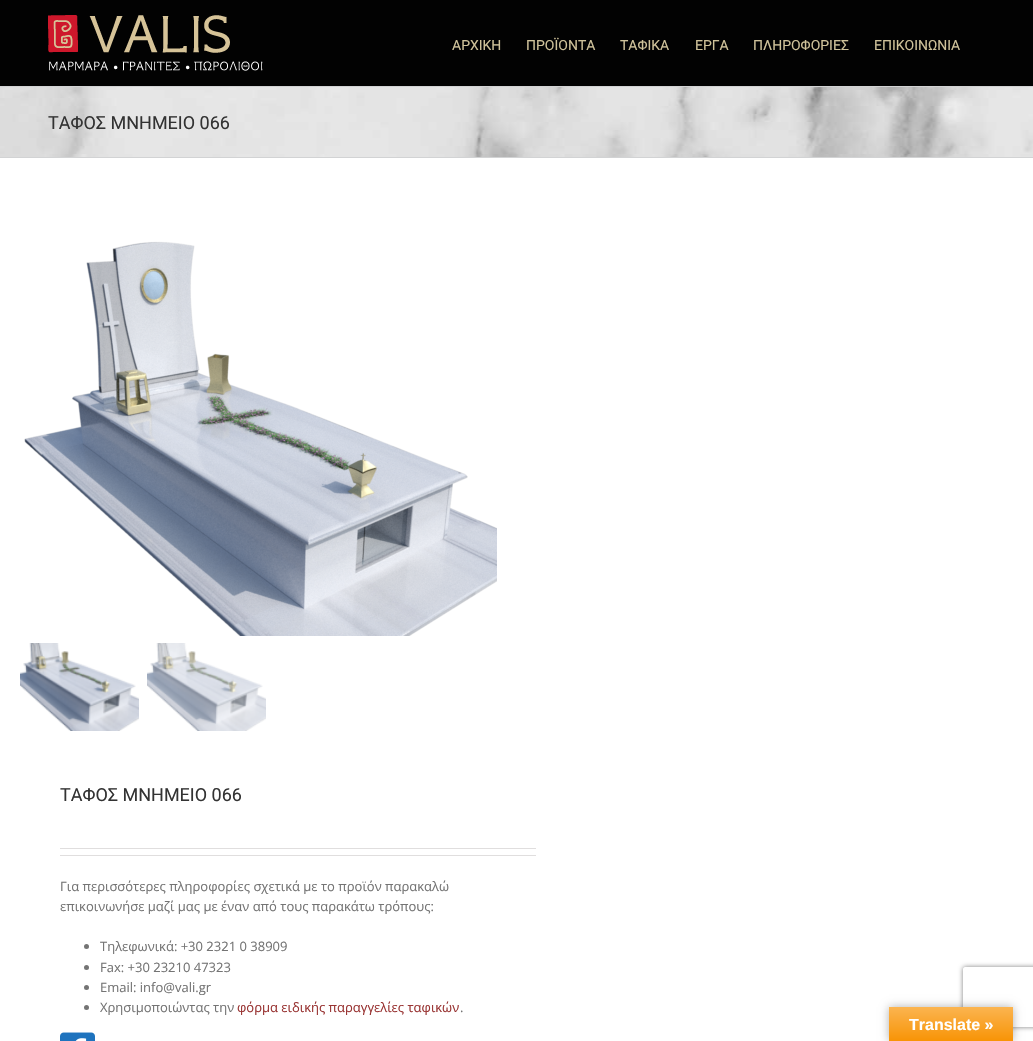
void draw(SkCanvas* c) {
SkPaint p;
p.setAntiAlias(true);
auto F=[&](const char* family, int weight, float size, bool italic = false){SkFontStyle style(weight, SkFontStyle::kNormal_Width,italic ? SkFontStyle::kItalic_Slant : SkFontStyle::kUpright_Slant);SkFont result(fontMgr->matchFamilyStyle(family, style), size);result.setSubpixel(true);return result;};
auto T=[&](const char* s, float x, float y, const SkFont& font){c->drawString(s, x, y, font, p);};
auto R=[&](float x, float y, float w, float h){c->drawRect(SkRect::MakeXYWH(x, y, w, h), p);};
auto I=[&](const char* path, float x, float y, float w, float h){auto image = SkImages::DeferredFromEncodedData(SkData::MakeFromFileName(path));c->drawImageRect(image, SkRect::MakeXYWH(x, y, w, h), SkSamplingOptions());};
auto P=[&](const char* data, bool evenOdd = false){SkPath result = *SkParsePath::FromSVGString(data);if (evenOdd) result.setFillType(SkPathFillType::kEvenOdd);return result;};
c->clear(0xffffffff);
p.setColor(0xff020202);
R(0,0,1033,86);
I("1.png",48,15,215,56);
auto f1 = F("Roboto",400,14);
p.setColor(0xffcfc29a);
T("ΑΡΧΙΚΗ",452,50,f1);
T("ΠΡΟΪΟΝΤΑ",526,50,f1);
T("ΤΑΦΙΚΑ",620,50,f1);
T("ΕΡΓΑ",695,50,f1);
T("ΠΛΗΡΟΦΟΡΙΕΣ",753,50,f1);
T("ΕΠΙΚΟΙΝΩΝΙΑ",874,50,f1);
I("2.png",0,87,1033,70);
p.setColor(0xffd2d3d4);
R(0,86,1033,1);
R(0,157,1033,1);
auto f2 = F("Roboto",400,18);
p.setColor(0xff333333);
T("ΤΑΦΟΣ ΜΝΗΜΕΙΟ 066",48,129,f2);
I("3.png",24,241,473,395);
I("4.png",20,643,119,88);
I("5.png",147,643,119,88);
T("ΤΑΦΟΣ ΜΝΗΜΕΙΟ 066",60,801,f2);
p.setColor(0xffe0dede);
R(60,848,476,1);
R(60,855,476,1);
auto f3 = F("Open Sans",400,13);
p.setColor(0xff747474);
T("Για περισσότερες πληροφορίες σχετικά με το προϊόν παρακαλώ",60,891,f3);
T("επικοινωνήσε μαζί μας με έναν από τους παρακάτω τρόπους:",60,911,f3);
c->drawCircle(86.5,946.5,2.5,p);
T("Τηλεφωνικά: +30 2321 0 38909",100,951,f3);
c->drawCircle(86.5,967.5,2.5,p);
T("Fax: +30 23210 47323",100,972,f3);
c->drawCircle(86.5,987.5,2.5,p);
T("Εmail: info@vali.gr",100,992,f3);
c->drawCircle(86.5,1007.5,2.5,p);
T("Χρησιμοποιώντας την",100,1012,f3);
p.setColor(0xff993433);
T("φόρμα ειδικής παραγγελίες ταφικών",237,1012,f3);
p.setColor(0xff747474);
T(".",460,1012,f3);
I("6.png",60,1032,35,9);
c->save();
c->clipPath(P("M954 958h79v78h-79zm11 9h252c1 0 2 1 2 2v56c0 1-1 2-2 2h-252c-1 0-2-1-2-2v-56c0-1 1-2 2-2z",true),true);
p.setColor(0xff808080);
p.setMaskFilter(SkMaskFilter::MakeBlur(kNormal_SkBlurStyle, 2.5));
c->drawRoundRect(SkRect::MakeXYWH(963,967,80,60),2,2,p);
p.setMaskFilter(nullptr);
c->restore();
p.setColor(0x4d000000);
p.setMaskFilter(SkMaskFilter::MakeBlur(kNormal_SkBlurStyle, 4.5));
c->drawRect(SkRect::MakeXYWH(889,1007,124,34),p);
p.setMaskFilter(nullptr);
{
const SkColor colors[] = {0xfffbb450,0xfff89406};
const float stops[] = {0,1};
const SkPoint ends[] = {{951,1007}, {951,1041}};
p.setShader(SkGradientShader::MakeLinear(ends, colors, stops, 2, SkTileMode::kClamp));
p.setAlpha(255);
}
R(889,1007,124,34);
auto f4 = F("Liberation Sans",700,16);
p.setShader(nullptr);
p.setColor(0xffffffff);
T("Translate »",909,1030,f4);
}
